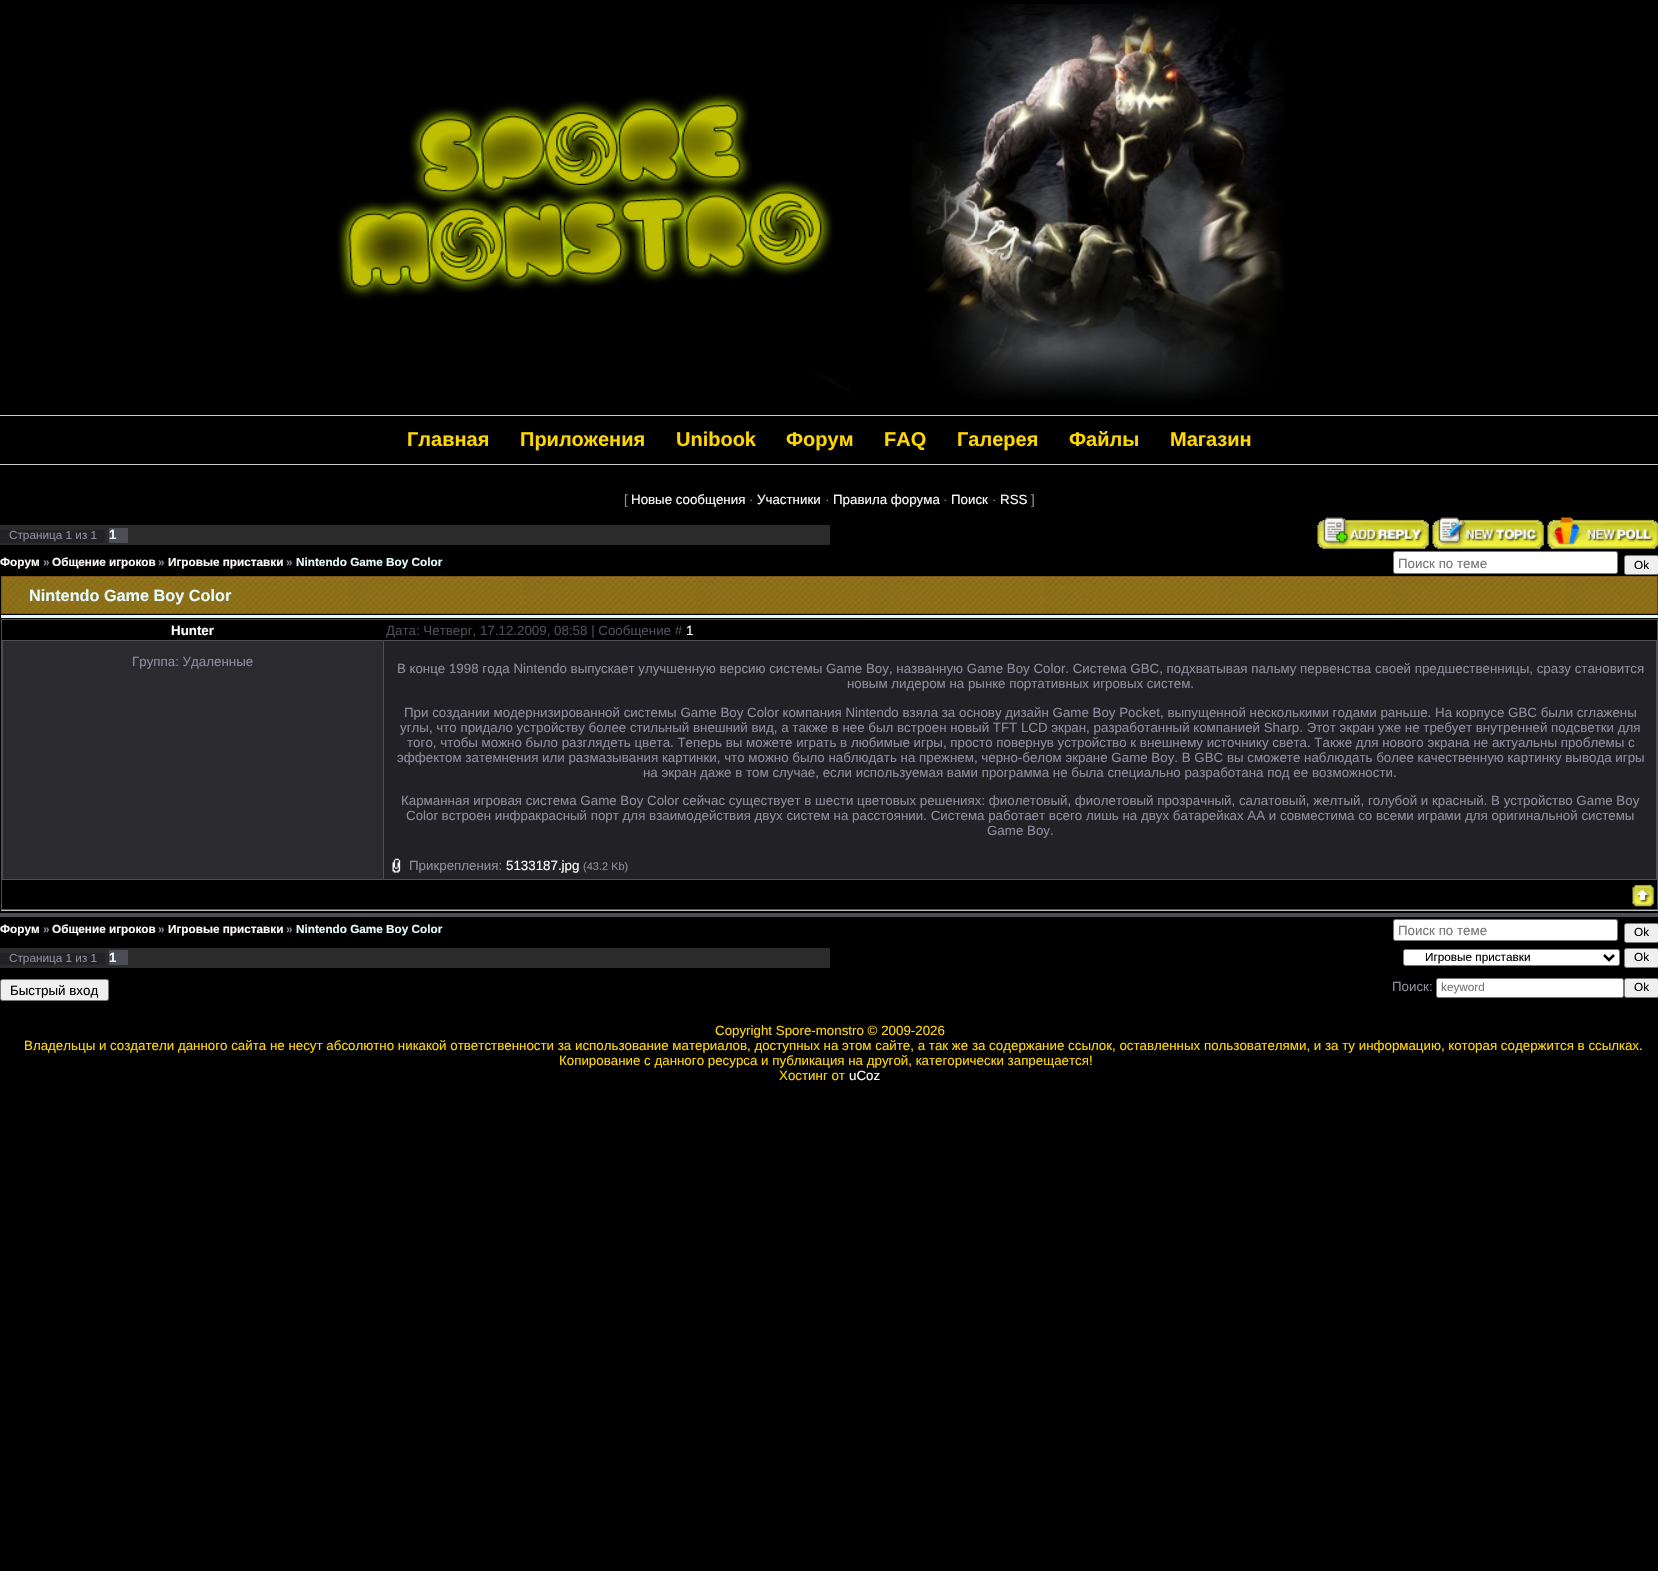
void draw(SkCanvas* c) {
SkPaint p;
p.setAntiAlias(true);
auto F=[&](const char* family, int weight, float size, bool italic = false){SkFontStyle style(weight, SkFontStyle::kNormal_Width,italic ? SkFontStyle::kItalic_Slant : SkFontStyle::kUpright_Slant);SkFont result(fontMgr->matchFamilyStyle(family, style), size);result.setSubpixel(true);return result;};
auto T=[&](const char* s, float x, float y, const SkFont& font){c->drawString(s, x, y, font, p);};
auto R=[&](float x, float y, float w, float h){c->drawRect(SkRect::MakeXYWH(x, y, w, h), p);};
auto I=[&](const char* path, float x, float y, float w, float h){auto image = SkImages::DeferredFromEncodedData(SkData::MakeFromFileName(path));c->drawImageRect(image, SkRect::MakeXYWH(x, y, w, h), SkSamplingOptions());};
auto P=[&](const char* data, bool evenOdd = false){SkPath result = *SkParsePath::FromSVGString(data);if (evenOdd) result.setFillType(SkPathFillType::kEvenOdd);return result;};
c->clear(0xff000000);
I("1.png",337,4,947,397);
p.setColor(0xffcccccc);
R(0,415,1658,1);
R(0,464,1658,1);
auto f1 = F("Liberation Sans",700,20);
p.setColor(0xffffd700);
T("Главная",407,446,f1);
T("Приложения",520,446,f1);
T("Unibook",676,446,f1);
T("Форум",786,446,f1);
T("FAQ",884,446,f1);
T("Галерея",957,446,f1);
T("Файлы",1069,446,f1);
T("Магазин",1170,446,f1);
auto f2 = F("Liberation Sans",400,13.33);
p.setColor(0xff8c8c9c);
T("[",624,504,f2);
p.setColor(0xfffffafa);
T("Новые сообщения",631,504,f2);
p.setColor(0xff8c8c9c);
T("·",749,504,f2);
p.setColor(0xfffffafa);
T("Участники",757,504,f2);
p.setColor(0xff8c8c9c);
T("·",825,504,f2);
p.setColor(0xfffffafa);
T("Правила форума",833,504,f2);
p.setColor(0xff8c8c9c);
T("·",943,504,f2);
p.setColor(0xfffffafa);
T("Поиск",951,504,f2);
p.setColor(0xff8c8c9c);
T("·",992,504,f2);
p.setColor(0xfffffafa);
T("RSS",1000,504,f2);
p.setColor(0xff8c8c9c);
T("]",1031,504,f2);
p.setColor(0xff2b2b2b);
R(0,525,830,20);
p.setColor(0xff222226);
R(0,530,105,13);
auto f3 = F("Liberation Sans",400,11.75);
p.setColor(0xff8c8c9c);
T("Страница 1 из 1",9,539,f3);
p.setColor(0xff4d4d56);
R(109,528,19,15);
auto f4 = F("Liberation Sans",700,13.33);
p.setColor(0xffe4fafd);
T("1",109,539,f4);
I("2.png",1317,517,112,32);
I("3.png",1432,517,112,32);
I("4.png",1547,517,111,32);
auto f5 = F("Liberation Sans",700,11.75);
p.setColor(0xfffffafa);
T("Форум",0,566,f5);
p.setColor(0xff8c8c9c);
T("»",43,566,f5);
p.setColor(0xfffffafa);
T("Общение игроков",52,566,f5);
p.setColor(0xff8c8c9c);
T("»",158,566,f5);
p.setColor(0xfffffafa);
T("Игровые приставки",168,566,f5);
p.setColor(0xff8c8c9c);
T("»",286,566,f5);
p.setColor(0xffe4fafd);
T("Nintendo Game Boy Color",296,566,f5);
p.setColor(0xffffffff);
c->drawRoundRect(SkRect::MakeXYWH(1393.5,551.5,224,22),2,2,p);
p.setStroke(true);
p.setStrokeWidth(1);
p.setColor(0xff767676);
c->drawRoundRect(SkRect::MakeXYWH(1393.5,551.5,224,22),2,2,p);
p.setStroke(false);
p.setColor(0xff757575);
T("Поиск по теме",1398,568,f2);
p.setColor(0xffefefef);
c->drawRoundRect(SkRect::MakeXYWH(1624.5,555.5,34,19),2,2,p);
p.setStroke(true);
p.setColor(0xff767676);
c->drawRoundRect(SkRect::MakeXYWH(1624.5,555.5,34,19),2,2,p);
p.setStroke(false);
p.setColor(0xff000000);
T("Ok",1634,569,f3);
p.setColor(0xff4d4d56);
R(0,913,1658,4);
p.setColor(0xff530303);
R(1,576,1657,38);
I("5.png",1,576,1657,38);
auto f6 = F("Liberation Sans",700,16.25);
p.setColor(0xffe4fafd);
T("Nintendo Game Boy Color",29,601,f6);
R(1,615,1657,3);
p.setColor(0xffc0c0c0);
R(1,910,1657,1);
p.setColor(0xff4d4d56);
R(1,619,1657,291);
p.setColor(0xff000000);
R(2,620,1655,20);
p.setColor(0xfffffafa);
T("Hunter",171,635,f4);
p.setColor(0xff4d4d56);
T("Дата: Четверг, 17.12.2009, 08:58 | Сообщение #",386,635,f2);
p.setColor(0xfffffafa);
T("1",686,635,f2);
p.setColor(0xff2a2a2f);
R(3,641,380,238);
p.setColor(0xff8c8c9c);
T("Группа: Удаленные",132,666,f2);
p.setColor(0xff222226);
R(384,641,1272,238);
p.setColor(0xff8c8c9c);
T("В конце 1998 года Nintendo выпускает улучшенную версию системы Game Boy, названную Game Boy Color. Система GBC, подхватывая пальму первенства своей предшественницы, сразу становится",397,673,f2);
T("новым лидером на рынке портативных игровых систем.",847,688,f2);
T("При создании модернизированной системы Game Boy Color компания Nintendo взяла за основу дизайн Game Boy Pocket, выпущенной несколькими годами раньше. На корпусе GBC были сглажены",404,717,f2);
T("углы, что придало устройству более стильный внешний вид, а также в нее был встроен новый TFT LCD экран, разработанный компанией Sharp. Этот экран уже не требует внутренней подсветки для",400,732,f2);
T("того, чтобы можно было разглядеть цвета. Теперь вы можете играть в любимые игры, просто повернув устройство к внешнему источнику света. Также для нового экрана не актуальны проблемы с",407,747,f2);
T("эффектом затемнения или размазывания картинки, что можно было наблюдать на прежнем, черно-белом экране Game Boy. В GBC вы сможете наблюдать более качественную картинку вывода игры",397,762,f2);
T("на экран даже в том случае, если используемая вами программа не была специально разработана под ее возможности.",643,777,f2);
T("Карманная игровая система Game Boy Color сейчас существует в шести цветовых решениях: фиолетовый, фиолетовый прозрачный, салатовый, желтый, голубой и красный. В устройство Game Boy",401,805,f2);
T("Color встроен инфракрасный порт для взаимодействия двух систем на расстоянии. Система работает всего лишь на двух батарейках AA и совместима со всеми играми для оригинальной системы",406,820,f2);
T("Game Boy.",987,835,f2);
I("6.png",392,858,9,15);
T("Прикрепления:",409,870,f2);
p.setColor(0xfffffafa);
T("5133187.jpg",506,870,f2);
auto f7 = F("Liberation Sans",400,11);
p.setColor(0xff8c8c9c);
T("(43.2 Kb)",583,870,f7);
p.setColor(0xff000000);
R(2,880,1655,29);
I("7.png",1632,884,22,23);
p.setColor(0xfffffafa);
T("Форум",0,933,f5);
p.setColor(0xff8c8c9c);
T("»",43,933,f5);
p.setColor(0xfffffafa);
T("Общение игроков",52,933,f5);
p.setColor(0xff8c8c9c);
T("»",158,933,f5);
p.setColor(0xfffffafa);
T("Игровые приставки",168,933,f5);
p.setColor(0xff8c8c9c);
T("»",286,933,f5);
p.setColor(0xffe4fafd);
T("Nintendo Game Boy Color",296,933,f5);
p.setColor(0xffffffff);
c->drawRoundRect(SkRect::MakeXYWH(1393.5,919.5,224,21),2,2,p);
p.setStroke(true);
p.setColor(0xff767676);
c->drawRoundRect(SkRect::MakeXYWH(1393.5,919.5,224,21),2,2,p);
p.setStroke(false);
p.setColor(0xff757575);
T("Поиск по теме",1398,935,f2);
p.setColor(0xffefefef);
c->drawRoundRect(SkRect::MakeXYWH(1624.5,923.5,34,19),2,2,p);
p.setStroke(true);
p.setColor(0xff767676);
c->drawRoundRect(SkRect::MakeXYWH(1624.5,923.5,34,19),2,2,p);
p.setStroke(false);
p.setColor(0xff000000);
T("Ok",1634,936,f3);
p.setColor(0xff2b2b2b);
R(0,948,830,20);
p.setColor(0xff222226);
R(0,953,105,12);
p.setColor(0xff8c8c9c);
T("Страница 1 из 1",9,962,f3);
p.setColor(0xff4d4d56);
R(109,950,19,15);
p.setColor(0xffe4fafd);
T("1",109,962,f4);
p.setColor(0xffffffff);
c->drawRoundRect(SkRect::MakeXYWH(1403.5,949.5,216,16),2,2,p);
p.setStroke(true);
p.setColor(0xff767676);
c->drawRoundRect(SkRect::MakeXYWH(1403.5,949.5,216,16),2,2,p);
p.setStrokeWidth(2.5);
p.setColor(0xff000000);
c->drawPath(P("M1604 955l5 5l5-5"),p);
p.setStroke(false);
T("Игровые приставки",1425,961,f3);
p.setColor(0xffefefef);
c->drawRoundRect(SkRect::MakeXYWH(1624.5,948.5,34,19),2,2,p);
p.setStroke(true);
p.setStrokeWidth(1);
p.setColor(0xff767676);
c->drawRoundRect(SkRect::MakeXYWH(1624.5,948.5,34,19),2,2,p);
p.setStroke(false);
p.setColor(0xff000000);
T("Ok",1634,961,f3);
p.setColor(0xffefefef);
c->drawRoundRect(SkRect::MakeXYWH(.5,979.5,108,21),2,2,p);
p.setStroke(true);
p.setColor(0xff767676);
c->drawRoundRect(SkRect::MakeXYWH(.5,979.5,108,21),2,2,p);
p.setStroke(false);
p.setColor(0xff000000);
T("Быстрый вход",10,995,f2);
p.setColor(0xff8c8c9c);
T("Поиск:",1392,991,f2);
p.setColor(0xffffffff);
c->drawRoundRect(SkRect::MakeXYWH(1436.5,978.5,187,19),2,2,p);
p.setStroke(true);
p.setColor(0xff767676);
c->drawRoundRect(SkRect::MakeXYWH(1436.5,978.5,187,19),2,2,p);
p.setStroke(false);
p.setColor(0xff757575);
T("keyword",1441,991,f3);
p.setColor(0xffefefef);
c->drawRoundRect(SkRect::MakeXYWH(1624.5,978.5,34,19),2,2,p);
p.setStroke(true);
p.setColor(0xff767676);
c->drawRoundRect(SkRect::MakeXYWH(1624.5,978.5,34,19),2,2,p);
p.setStroke(false);
p.setColor(0xff000000);
T("Ok",1634,991,f3);
p.setColor(0xffffd700);
T("Copyright Spore-monstro © 2009-2026",715,1035,f2);
T("Владельцы и создатели данного сайта не несут абсолютно никакой ответственности за использование материалов, доступных на этом сайте, а так же за содержание ссылок, оставленных пользователями, и за ту информацию, которая содержится в ссылках.",24,1050,f2);
T("Копирование с данного ресурса и публикация на другой, категорически запрещается!",559,1065,f2);
T("Хостинг от",779,1080,f2);
p.setColor(0xfffffafa);
T("uCoz",849,1080,f2);
}
